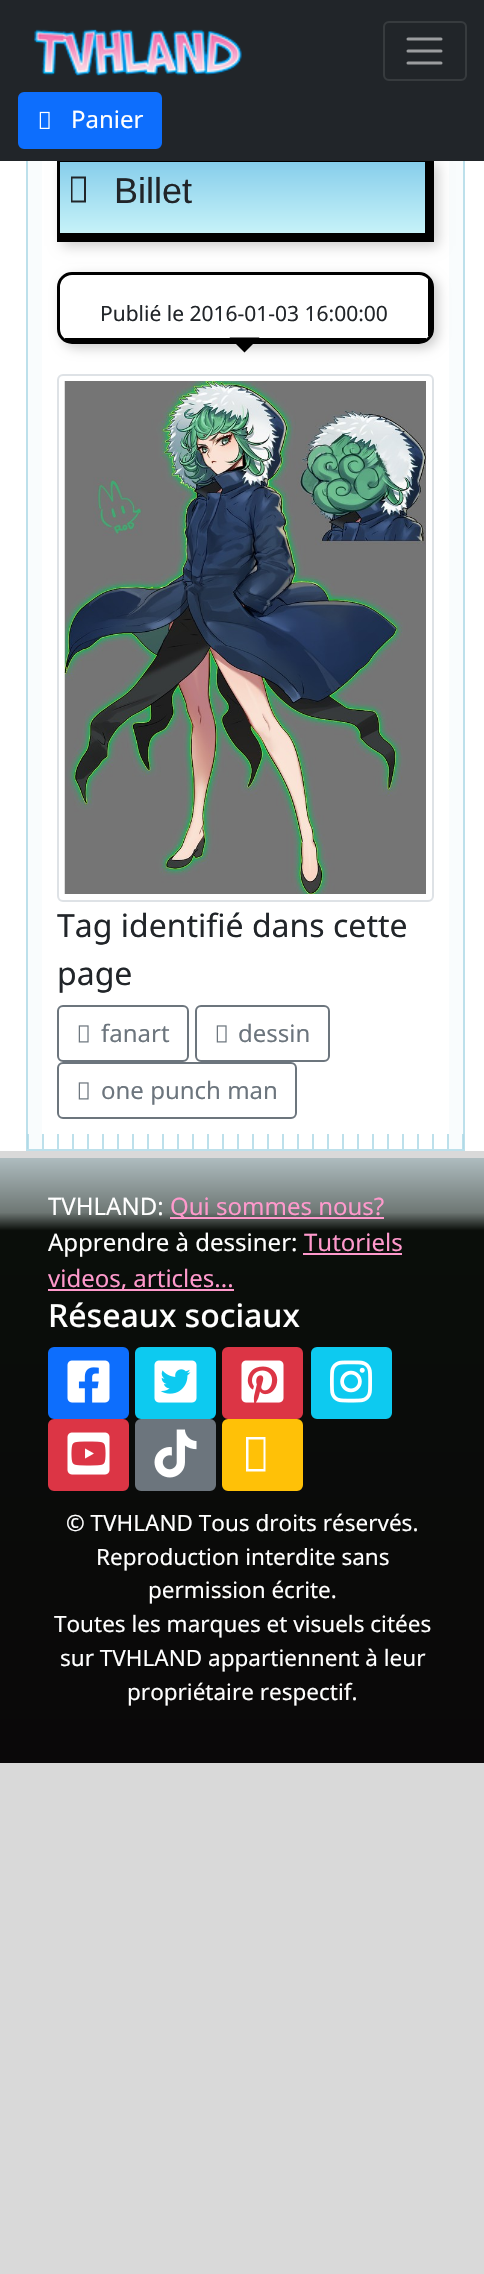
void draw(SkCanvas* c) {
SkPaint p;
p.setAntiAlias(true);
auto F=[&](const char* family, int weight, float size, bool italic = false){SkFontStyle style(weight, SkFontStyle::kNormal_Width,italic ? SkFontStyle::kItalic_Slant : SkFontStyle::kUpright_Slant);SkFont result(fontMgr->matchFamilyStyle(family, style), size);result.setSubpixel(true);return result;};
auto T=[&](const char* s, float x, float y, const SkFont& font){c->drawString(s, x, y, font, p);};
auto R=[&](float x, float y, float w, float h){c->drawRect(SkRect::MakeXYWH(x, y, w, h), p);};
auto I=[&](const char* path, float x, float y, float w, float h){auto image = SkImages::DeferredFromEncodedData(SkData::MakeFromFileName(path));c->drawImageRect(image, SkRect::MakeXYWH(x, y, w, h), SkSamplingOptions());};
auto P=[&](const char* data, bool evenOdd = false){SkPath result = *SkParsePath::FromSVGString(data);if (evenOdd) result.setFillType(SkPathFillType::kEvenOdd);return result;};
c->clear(0xffd9d9d9);
p.setColor(0xffffffff);
R(0,161,484,990);
p.setStroke(true);
p.setStrokeWidth(2);
p.setColor(0xffbde0eb);
c->drawRect(SkRect::MakeXYWH(27,114,437,1036),p);
p.setStroke(false);
p.setColor(0x33000000);
p.setMaskFilter(SkMaskFilter::MakeBlur(kNormal_SkBlurStyle, 6));
c->drawRect(SkRect::MakeXYWH(62,164,376,82),p);
p.setMaskFilter(nullptr);
p.setColor(0xff000000);
R(57,161,368,1);
R(57,159,3,83);
p.setColor(0xff212529);
R(0,0,484,161);
I("1.png",34,29,208,48);
p.setStroke(true);
p.setColor(0xff373b3e);
c->drawRoundRect(SkRect::MakeXYWH(384,22,82,58),5,5,p);
p.setStrokeWidth(3);
p.setStrokeCap(SkPaint::kRound_Cap);
p.setColor(0xff9b9d9f);
c->drawPath(P("M408 39h33m-33 12h33m-33 12h33"),p);
p.setStroke(false);
p.setColor(0xff0d6efd);
c->drawRoundRect(SkRect::MakeXYWH(19,93,142,55),5,5,p);
p.setStroke(true);
p.setStrokeWidth(2);
p.setStrokeCap(SkPaint::kButt_Cap);
c->drawRoundRect(SkRect::MakeXYWH(19,93,142,55),5,5,p);
I("2.png",39,111,11,18);
auto f1 = F("Noto Sans",400,24);
p.setStroke(false);
p.setColor(0xffffffff);
T("Panier",71,128,f1);
p.setColor(0x14add8e6);
R(28,161,14,988);
{
const SkColor colors[] = {0xff87ceeb,0xffc6f2f8};
const float stops[] = {0,1};
const SkPoint ends[] = {{242,162}, {242,233}};
p.setShader(SkGradientShader::MakeLinear(ends, colors, stops, 2, SkTileMode::kClamp));
p.setAlpha(255);
}
R(60,162,365,71);
p.setShader(nullptr);
p.setColor(0xff000000);
R(425,161,9,72);
R(60,233,374,9);
p.setColor(0xff212529);
c->drawPath(P("M71 202.5v-26h15v26zm1.5-2h11.5v-22h-11.5z"),p);
auto f2 = F("Liberation Sans",400,36);
T("Billet",114,203,f2);
p.setColor(0x14add8e6);
R(449,161,14,988);
c->save();
c->clipPath(P("M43 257h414v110h-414zm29 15h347c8.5 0 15 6.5 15 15v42c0 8.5-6.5 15-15 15h-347c-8.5 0-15-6.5-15-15v-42c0-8.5 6.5-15 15-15z",true),true);
p.setColor(0x33000000);
p.setMaskFilter(SkMaskFilter::MakeBlur(kNormal_SkBlurStyle, 6));
c->drawRoundRect(SkRect::MakeXYWH(62,276,376,72),15,15,p);
p.setMaskFilter(nullptr);
c->restore();
p.setStroke(true);
p.setStrokeWidth(3);
p.setColor(0xff000000);
c->drawRoundRect(SkRect::MakeXYWH(58.5,273.5,374,69),13.5,13.5,p);
p.setStroke(false);
R(428,279,3,57);
R(65,338,361,3);
auto f3 = F("Noto Sans",400,21);
p.setColor(0xff212529);
T("Publié le 2016-01-03 16:00:00",100,321,f3);
p.setColor(0xff000000);
c->drawPath(P("M229.5 337.5h30l-15 15z"),p);
p.setStroke(true);
p.setStrokeWidth(2);
p.setColor(0xffdee2e6);
c->drawRoundRect(SkRect::MakeXYWH(58,375,375,526),5,5,p);
I("3.png",64,381,362,513);
auto f4 = F("Noto Sans",400,32);
p.setStroke(false);
p.setColor(0xff212529);
T("Tag identifié dans cette",57,937,f4);
T("page",57,985,f4);
p.setStroke(true);
p.setColor(0xff6c757d);
c->drawRoundRect(SkRect::MakeXYWH(58,1006,130,55),5,5,p);
I("4.png",78,1025,11,18);
p.setStroke(false);
T("fanart",101,1042,f1);
p.setStroke(true);
c->drawRoundRect(SkRect::MakeXYWH(196,1006,133,55),5,5,p);
I("4.png",216,1025,11,18);
p.setStroke(false);
T("dessin",238,1042,f1);
p.setStroke(true);
c->drawRoundRect(SkRect::MakeXYWH(58,1063,238,55),5,5,p);
I("4.png",78,1082,11,18);
p.setStroke(false);
T("one punch man",101,1099,f1);
I("5.png",27,1134,437,15);
{
const SkColor colors[] = {0xffaebcbf,0xff6e7774,0xff0a0e0a,0xff0a0809};
const float stops[] = {0,.09,.12,1};
const SkPoint ends[] = {{242,1158}, {242,1763}};
p.setShader(SkGradientShader::MakeLinear(ends, colors, stops, 4, SkTileMode::kClamp));
p.setAlpha(255);
}
R(0,1158,484,605);
p.setShader(nullptr);
p.setColor(0xffffffff);
T("TVHLAND:",48,1215,f1);
p.setColor(0xffff99cc);
R(170,1217,214,2);
T("Qui sommes nous?",170,1215,f1);
p.setColor(0xffffffff);
T("Apprendre à dessiner:",48,1251,f1);
p.setColor(0xffff99cc);
T("Tutoriels",304,1251,f1);
R(303,1253,99,2);
R(48,1289,186,2);
T("videos, articles...",48,1287,f1);
auto f5 = F("Noto Sans",500,32);
p.setColor(0xffffffff);
T("Réseaux sociaux",48,1327,f5);
p.setColor(0xff0d6efd);
c->drawRoundRect(SkRect::MakeXYWH(49,1348,79,70),5,5,p);
p.setStroke(true);
c->drawRoundRect(SkRect::MakeXYWH(49,1348,79,70),5,5,p);
I("6.png",67,1360,43,43);
p.setStroke(false);
p.setColor(0xff0dcaf0);
c->drawRoundRect(SkRect::MakeXYWH(136,1348,79,70),5,5,p);
p.setStroke(true);
c->drawRoundRect(SkRect::MakeXYWH(136,1348,79,70),5,5,p);
I("7.png",154,1360,43,43);
p.setStroke(false);
p.setColor(0xffdc3545);
c->drawRoundRect(SkRect::MakeXYWH(223,1348,79,70),5,5,p);
p.setStroke(true);
c->drawRoundRect(SkRect::MakeXYWH(223,1348,79,70),5,5,p);
I("8.png",241,1360,43,43);
p.setStroke(false);
p.setColor(0xff0dcaf0);
c->drawRoundRect(SkRect::MakeXYWH(312,1348,79,70),5,5,p);
p.setStroke(true);
c->drawRoundRect(SkRect::MakeXYWH(312,1348,79,70),5,5,p);
I("9.png",330,1360,42,43);
p.setStroke(false);
p.setColor(0xffdc3545);
c->drawRoundRect(SkRect::MakeXYWH(49,1420,79,70),5,5,p);
p.setStroke(true);
c->drawRoundRect(SkRect::MakeXYWH(49,1420,79,70),5,5,p);
I("10.png",67,1432,43,43);
p.setStroke(false);
p.setColor(0xff6c757d);
c->drawRoundRect(SkRect::MakeXYWH(136,1420,79,70),5,5,p);
p.setStroke(true);
c->drawRoundRect(SkRect::MakeXYWH(136,1420,79,70),5,5,p);
I("11.png",154,1429,43,49);
p.setStroke(false);
p.setColor(0xffffc107);
c->drawRoundRect(SkRect::MakeXYWH(223,1420,79,70),5,5,p);
p.setStroke(true);
c->drawRoundRect(SkRect::MakeXYWH(223,1420,79,70),5,5,p);
p.setStroke(false);
p.setColor(0xffffffff);
c->drawPath(P("M246 1471.5v-34.5h19.5v34.5zm2.5-2.5h15v-29.5h-15z"),p);
auto f6 = F("Noto Sans",400,22.5);
T("© TVHLAND Tous droits réservés.",66,1531,f6);
T("Reproduction interdite sans",96,1565,f6);
T("permission écrite.",148,1598,f6);
T("Toutes les marques et visuels citées",54,1632,f6);
T("sur TVHLAND appartiennent à leur",60,1666,f6);
T("propriétaire respectif.",127,1700,f6);
}
